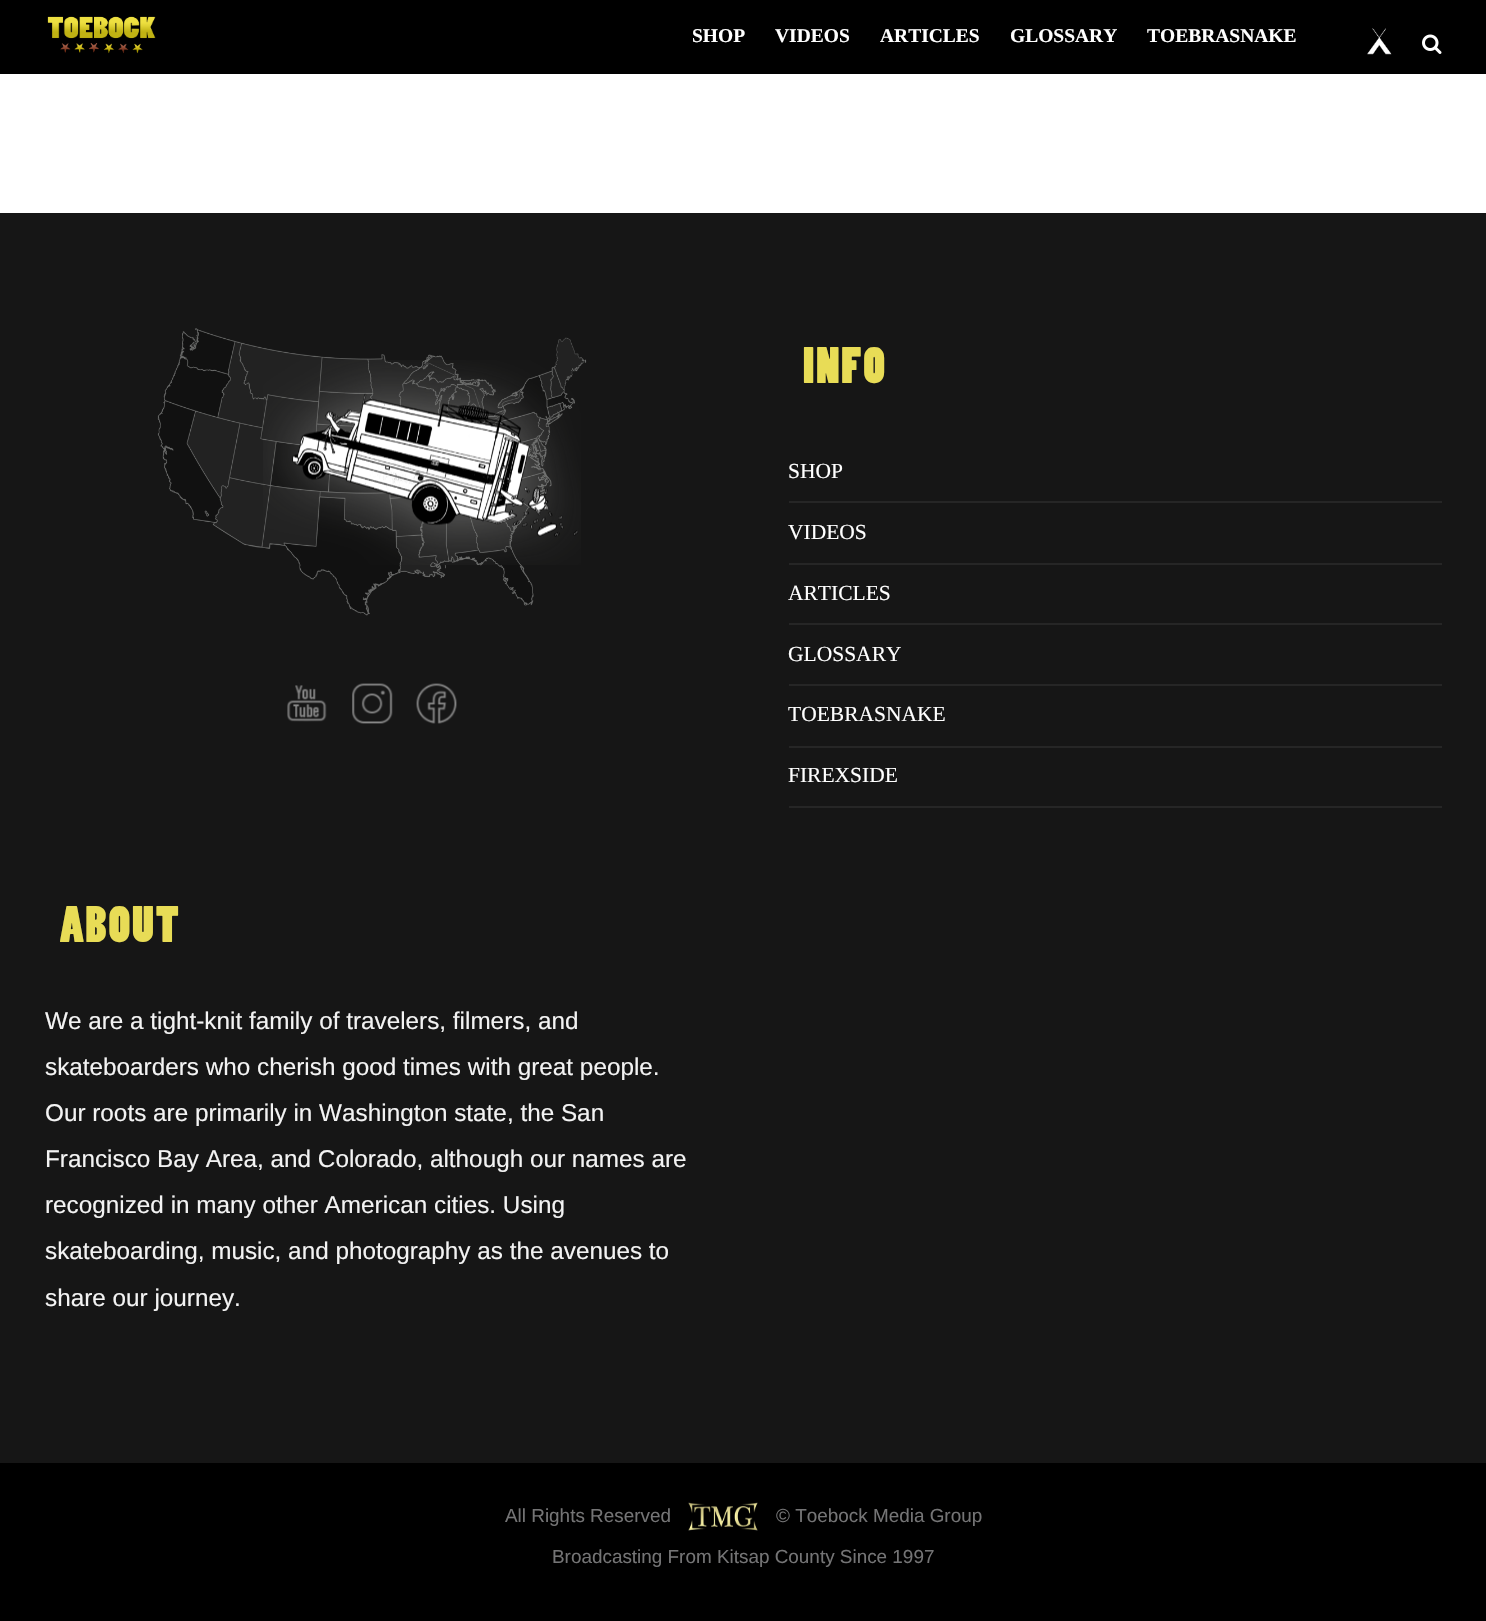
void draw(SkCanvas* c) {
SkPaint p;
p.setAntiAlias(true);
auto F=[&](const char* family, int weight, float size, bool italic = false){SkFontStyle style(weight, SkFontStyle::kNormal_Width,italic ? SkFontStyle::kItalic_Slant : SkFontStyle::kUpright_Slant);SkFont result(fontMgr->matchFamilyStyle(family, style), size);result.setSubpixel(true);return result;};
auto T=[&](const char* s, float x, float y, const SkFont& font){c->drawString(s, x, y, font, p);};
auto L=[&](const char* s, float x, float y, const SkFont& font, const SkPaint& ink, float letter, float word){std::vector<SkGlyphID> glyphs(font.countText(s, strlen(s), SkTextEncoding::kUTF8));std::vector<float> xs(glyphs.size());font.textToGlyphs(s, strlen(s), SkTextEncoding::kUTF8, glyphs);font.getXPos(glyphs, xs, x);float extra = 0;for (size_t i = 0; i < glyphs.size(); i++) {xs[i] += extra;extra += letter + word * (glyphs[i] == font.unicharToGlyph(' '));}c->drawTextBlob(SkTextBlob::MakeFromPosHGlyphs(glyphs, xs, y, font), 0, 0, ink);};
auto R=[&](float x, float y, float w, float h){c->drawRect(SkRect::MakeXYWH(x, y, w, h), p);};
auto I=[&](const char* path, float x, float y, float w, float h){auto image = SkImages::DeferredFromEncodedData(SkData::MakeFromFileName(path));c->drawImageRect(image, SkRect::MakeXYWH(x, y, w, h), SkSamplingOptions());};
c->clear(0xffffffff);
p.setColor(0xff000000);
R(0,0,1486,74);
I("1.png",47,16,109,38);
auto f1 = F("Liberation Serif",700,19.5);
p.setColor(0xffffffff);
T("SHOP",692,42,f1);
T("VIDEOS",775,42,f1);
T("ARTICLES",880,42,f1);
T("GLOSSARY",1010,42,f1);
T("TOEBRASNAKE",1147,42,f1);
I("2.png",1367,28,25,27);
I("3.png",1422,34,20,20);
p.setColor(0xff161616);
R(0,213,1486,1250);
I("4.png",157,328,430,288);
I("5.png",263,360,318,205);
I("6.png",287,685,40,37);
I("7.png",352,683,41,41);
I("8.png",416,683,41,41);
auto f2 = F("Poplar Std",700,48);
p.setColor(0xffe8dc56);
L("INFO",803,383,f2,p,2,0);
p.setColor(0xff262626);
R(789,501,653,2);
auto f3 = F("Liberation Serif",400,21.5);
p.setColor(0xffffffff);
T("SHOP",788,478,f3);
p.setColor(0xff262626);
R(789,563,653,2);
p.setColor(0xffffffff);
T("VIDEOS",788,539,f3);
p.setColor(0xff262626);
R(789,623,653,2);
p.setColor(0xffffffff);
T("ARTICLES",788,600,f3);
p.setColor(0xff262626);
R(789,684,653,2);
p.setColor(0xffffffff);
T("GLOSSARY",788,661,f3);
p.setColor(0xff262626);
R(789,746,653,2);
p.setColor(0xffffffff);
T("TOEBRASNAKE",788,721,f3);
p.setColor(0xff262626);
R(789,806,653,2);
p.setColor(0xffffffff);
T("FIREXSIDE",788,782,f3);
p.setColor(0xffe8dc56);
L("ABOUT",60,942,f2,p,2,0);
auto f4 = F("Liberation Sans",400,24.3);
p.setColor(0xfff3f3f3);
T("We are a tight-knit family of travelers, filmers, and",45,1029,f4);
T("skateboarders who cherish good times with great people.",45,1075,f4);
T("Our roots are primarily in Washington state, the San",45,1121,f4);
T("Francisco Bay Area, and Colorado, although our names are",45,1167,f4);
T("recognized in many other American cities. Using",45,1213,f4);
T("skateboarding, music, and photography as the avenues to",45,1259,f4);
T("share our journey.",45,1306,f4);
p.setColor(0xff000000);
R(0,1463,1486,158);
auto f5 = F("Liberation Sans",400,18.9);
p.setColor(0xff747475);
T("All Rights Reserved",505,1522,f5);
I("9.png",688,1502,70,29);
T("© Toebock Media Group",776,1522,f5);
T("Broadcasting From Kitsap County Since 1997",552,1563,f5);
}
